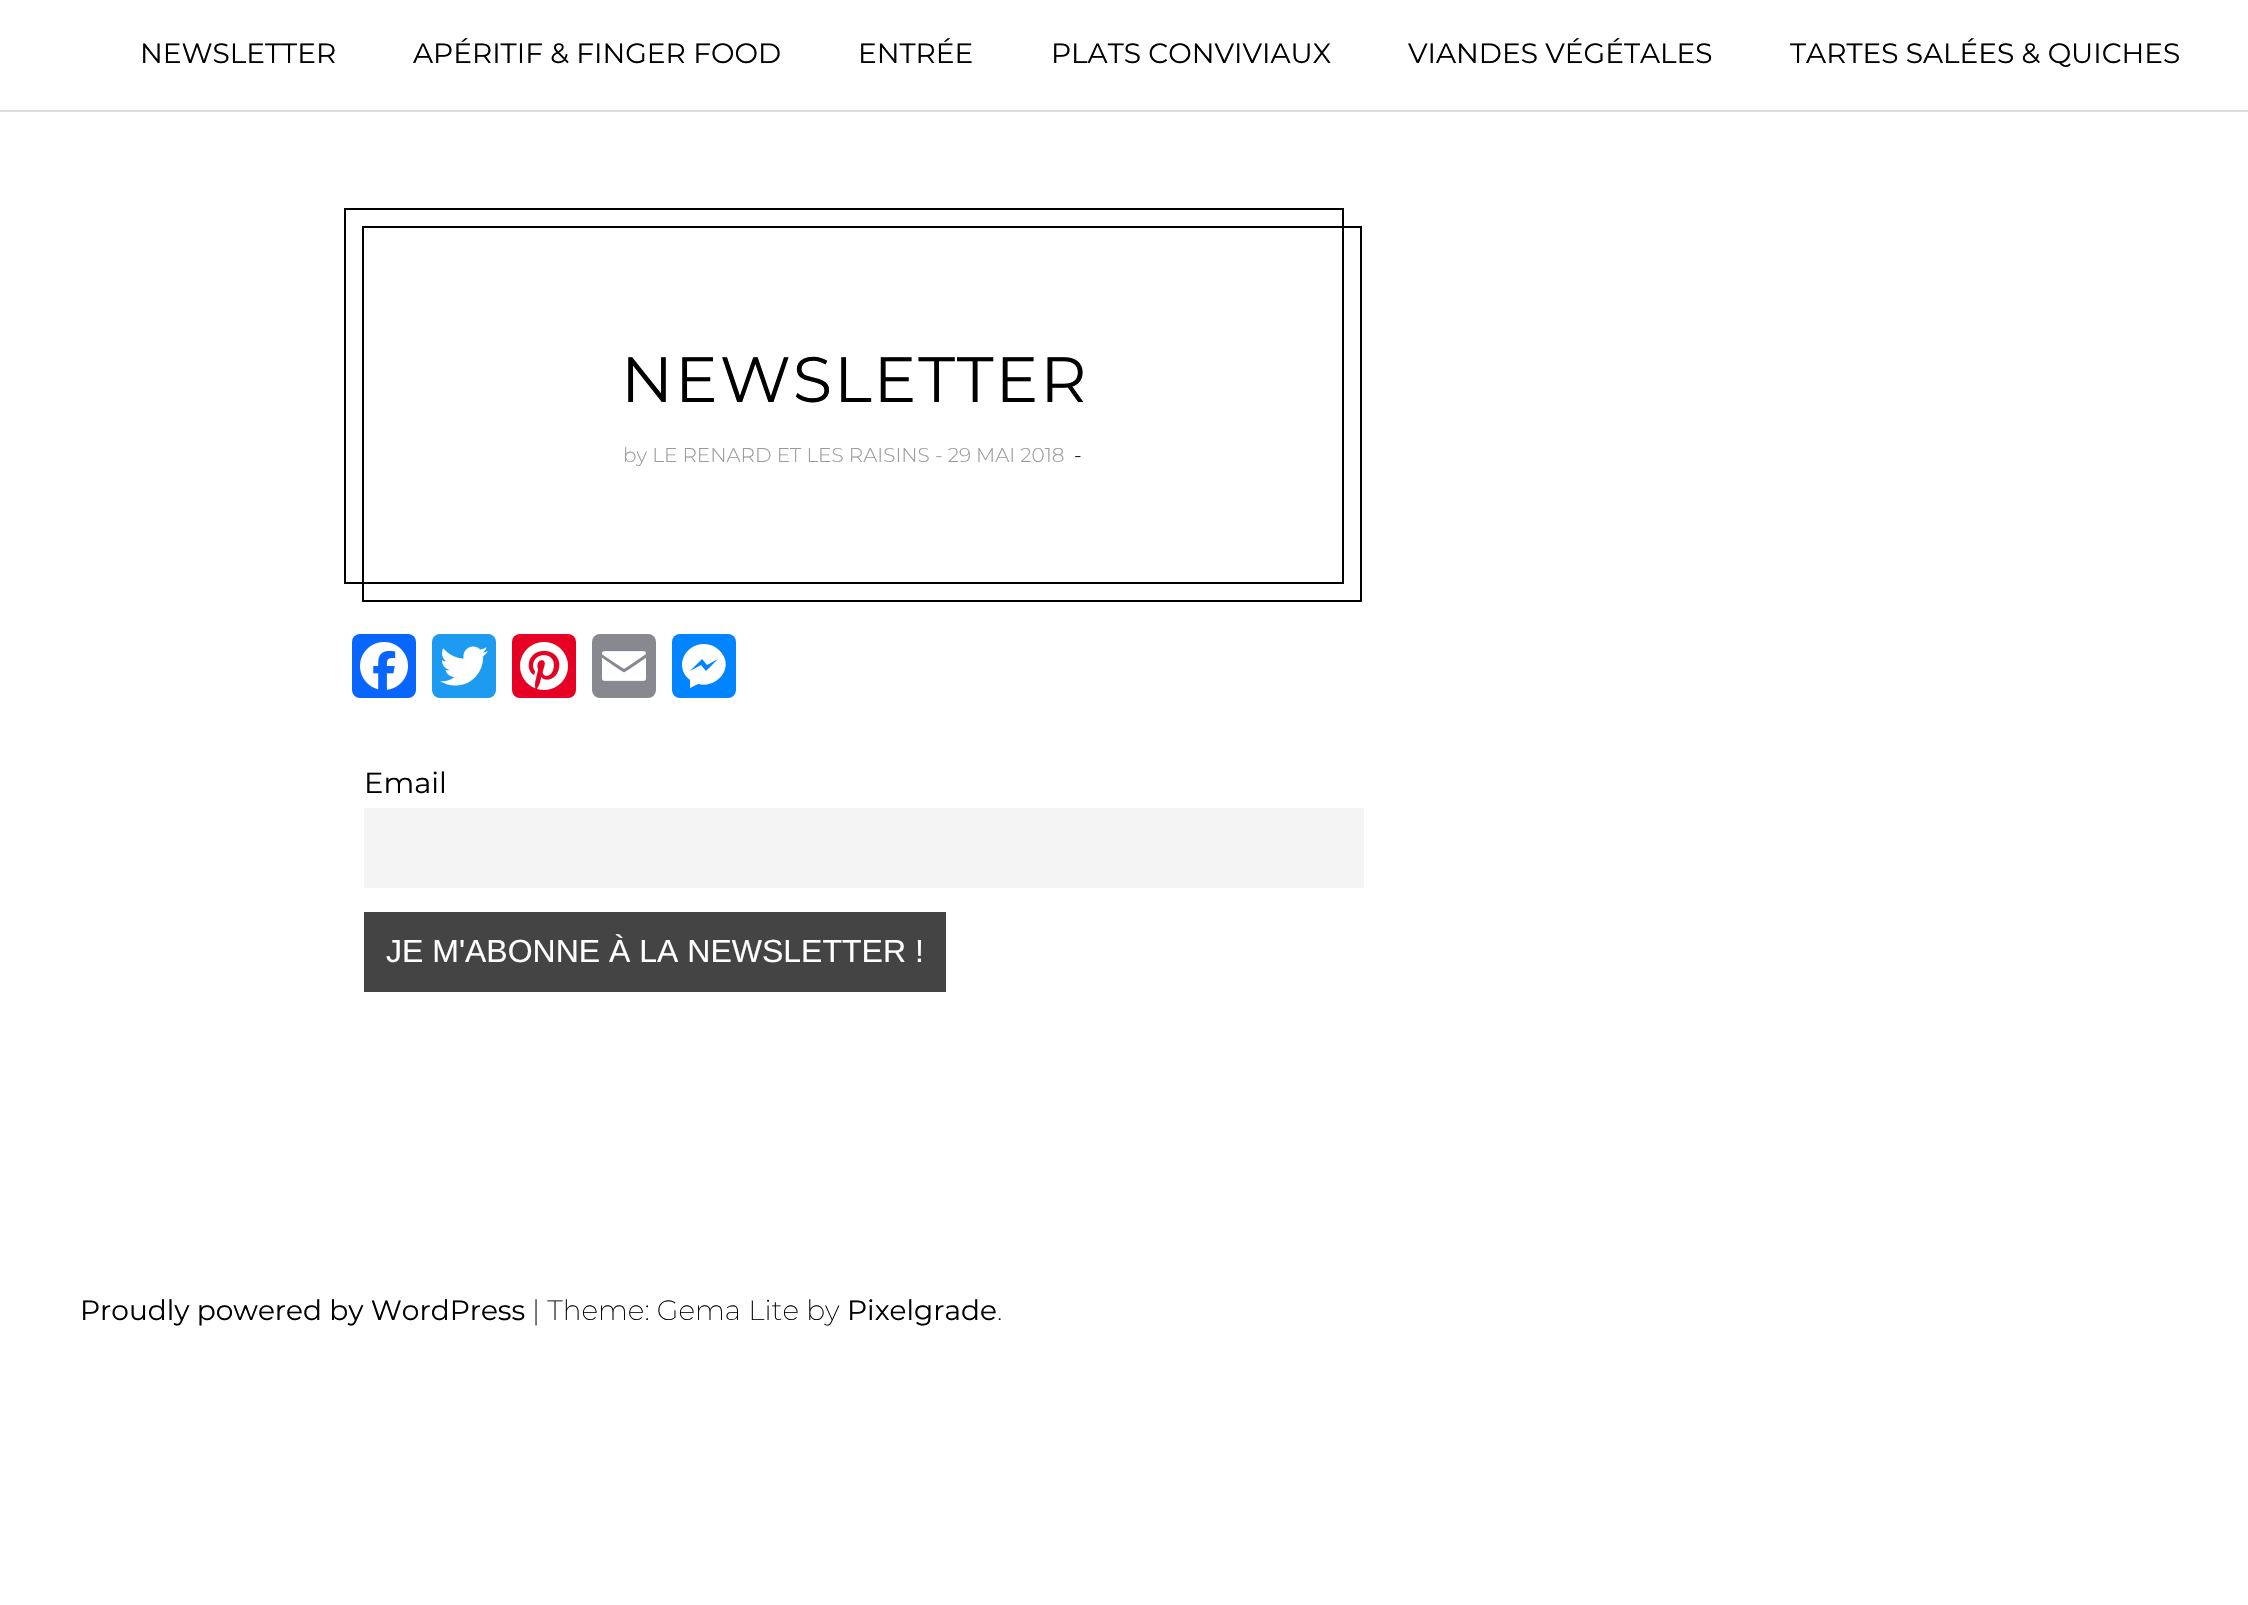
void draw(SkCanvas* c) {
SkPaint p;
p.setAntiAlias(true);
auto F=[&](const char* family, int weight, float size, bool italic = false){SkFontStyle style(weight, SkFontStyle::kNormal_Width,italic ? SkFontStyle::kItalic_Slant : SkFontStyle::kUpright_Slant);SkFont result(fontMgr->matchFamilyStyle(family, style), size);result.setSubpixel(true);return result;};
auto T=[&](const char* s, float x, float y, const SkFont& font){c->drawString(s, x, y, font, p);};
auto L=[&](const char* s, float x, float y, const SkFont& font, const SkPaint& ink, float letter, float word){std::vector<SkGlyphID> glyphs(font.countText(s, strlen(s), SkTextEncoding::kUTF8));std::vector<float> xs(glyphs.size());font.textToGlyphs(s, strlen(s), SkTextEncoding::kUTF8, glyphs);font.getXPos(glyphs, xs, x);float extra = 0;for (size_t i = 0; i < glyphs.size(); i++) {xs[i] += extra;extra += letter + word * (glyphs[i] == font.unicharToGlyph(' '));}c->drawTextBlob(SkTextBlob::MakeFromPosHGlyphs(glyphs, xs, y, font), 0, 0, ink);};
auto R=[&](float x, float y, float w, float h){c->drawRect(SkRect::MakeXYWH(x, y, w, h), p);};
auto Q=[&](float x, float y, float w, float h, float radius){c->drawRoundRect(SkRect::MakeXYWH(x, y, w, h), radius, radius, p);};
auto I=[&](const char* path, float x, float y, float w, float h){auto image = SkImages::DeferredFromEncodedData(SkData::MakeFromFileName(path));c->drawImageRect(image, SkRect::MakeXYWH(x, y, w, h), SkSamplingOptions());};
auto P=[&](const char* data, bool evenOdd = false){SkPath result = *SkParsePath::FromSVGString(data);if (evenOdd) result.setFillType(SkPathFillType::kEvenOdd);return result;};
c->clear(0xffffffff);
p.setColor(0xffdddddd);
R(0,110,2248,2);
auto f1 = F("Montserrat",400,28);
p.setColor(0xff000000);
T("NEWSLETTER",140,63,f1);
T("APÉRITIF & FINGER FOOD",413,63,f1);
T("ENTRÉE",858,63,f1);
T("PLATS CONVIVIAUX",1051,63,f1);
T("VIANDES VÉGÉTALES",1408,63,f1);
T("TARTES SALÉES & QUICHES",1790,63,f1);
p.setStroke(true);
p.setStrokeWidth(2);
c->drawRect(SkRect::MakeXYWH(345,209,998,374),p);
c->drawRect(SkRect::MakeXYWH(363,227,998,374),p);
auto f2 = F("Montserrat",400,64);
p.setStroke(false);
L("NEWSLETTER",621,402,f2,p,1.9,0);
auto f3 = F("Montserrat",300,20);
p.setColor(0xff9a9a98);
T("by LE RENARD ET LES RAISINS - 29 MAI 2018",623,462,f3);
p.setColor(0xff000000);
T("-",1074,462,f3);
p.setColor(0xff0866ff);
Q(352,634,64,64,8);
I("1.png",360,642,48,48);
p.setColor(0xff1d9bf0);
Q(432,634,64,64,8);
I("2.png",440,646,48,40);
p.setColor(0xffe60023);
Q(512,634,64,64,8);
I("3.png",520,642,48,48);
p.setColor(0xff888990);
Q(592,634,64,64,8);
I("4.png",602,651,44,30);
p.setColor(0xff0084ff);
Q(672,634,64,64,8);
p.setColor(0xffffffff);
c->drawPath(P("M704 644c-20 0-30 24-14 36v8l8-4c20 5 38-18 21-34c-4-4-9-6-15-6m2 27l-5-6l-11 6l12-12l5 6l11-6z"),p);
auto f4 = F("Montserrat",400,29);
p.setColor(0xff000000);
T("Email",364,793,f4);
p.setColor(0xfff4f4f4);
R(364,808,1000,80);
p.setColor(0xff444444);
R(364,912,582,80);
auto f5 = F("Liberation Sans",400,32);
p.setColor(0xffffffff);
T("JE M'ABONNE À LA NEWSLETTER !",386,962,f5);
p.setColor(0xff000000);
T("Proudly powered by WordPress",80,1320,f1);
auto f6 = F("Montserrat",200,28);
T("| Theme: Gema Lite by",532,1320,f6);
T("Pixelgrade",847,1320,f1);
T(".",997,1320,f6);
}
